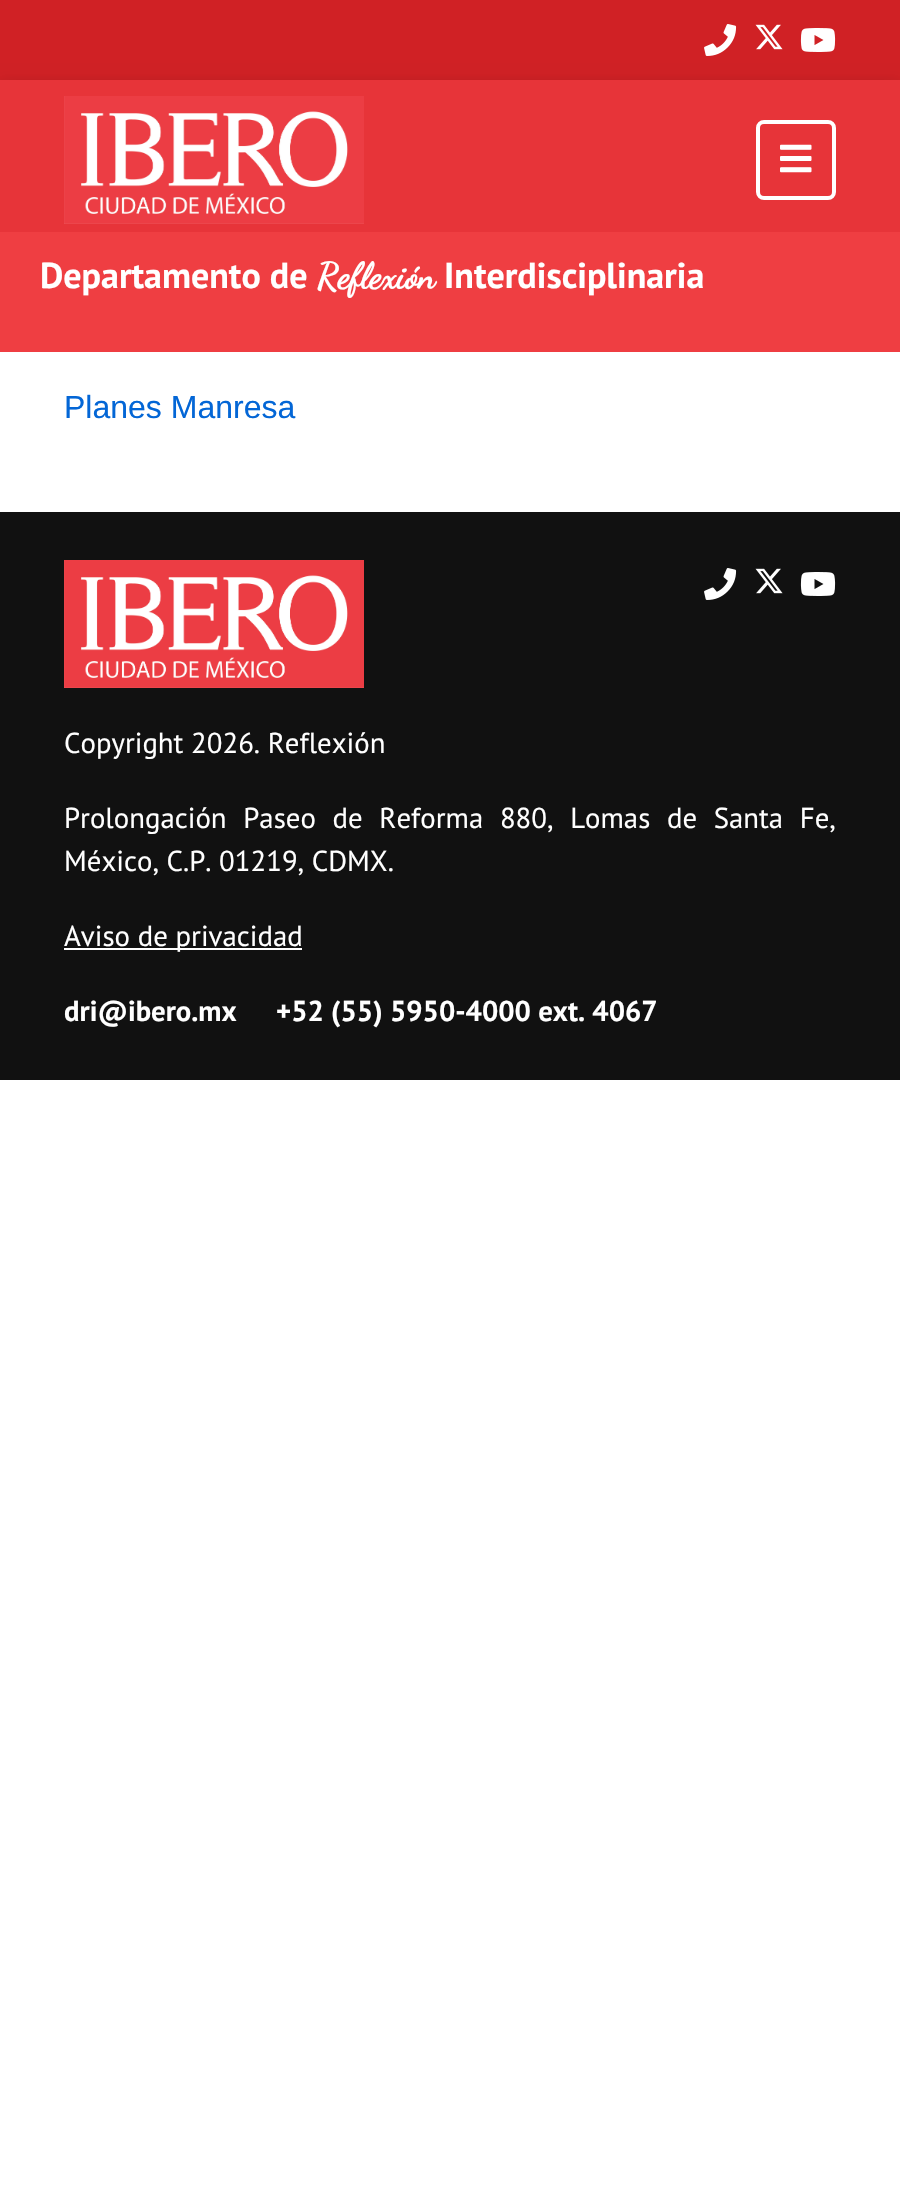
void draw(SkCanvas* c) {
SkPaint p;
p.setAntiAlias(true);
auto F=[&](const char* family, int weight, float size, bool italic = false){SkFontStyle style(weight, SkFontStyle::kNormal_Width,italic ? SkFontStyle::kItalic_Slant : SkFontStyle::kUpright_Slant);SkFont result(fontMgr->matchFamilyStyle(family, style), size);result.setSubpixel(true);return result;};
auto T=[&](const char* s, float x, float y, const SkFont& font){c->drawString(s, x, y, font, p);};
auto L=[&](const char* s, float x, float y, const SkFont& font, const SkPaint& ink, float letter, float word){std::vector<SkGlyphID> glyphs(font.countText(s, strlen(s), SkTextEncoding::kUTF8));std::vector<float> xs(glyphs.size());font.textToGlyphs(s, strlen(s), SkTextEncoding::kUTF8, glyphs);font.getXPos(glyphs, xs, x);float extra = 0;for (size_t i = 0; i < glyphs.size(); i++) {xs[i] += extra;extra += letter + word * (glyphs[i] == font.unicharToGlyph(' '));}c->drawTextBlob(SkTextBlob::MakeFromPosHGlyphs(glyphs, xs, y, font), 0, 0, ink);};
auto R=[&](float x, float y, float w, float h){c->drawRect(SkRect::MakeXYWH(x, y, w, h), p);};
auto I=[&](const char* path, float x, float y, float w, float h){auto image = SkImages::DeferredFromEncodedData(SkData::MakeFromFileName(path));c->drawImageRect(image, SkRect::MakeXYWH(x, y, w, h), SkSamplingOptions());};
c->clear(0xffffffff);
p.setColor(0xffd02125);
R(0,0,900,80);
I("1.png",704,24,33,32);
I("2.png",755,24,28,26);
I("3.png",800,28,36,24);
p.setColor(0x29000000);
p.setMaskFilter(SkMaskFilter::MakeBlur(kNormal_SkBlurStyle, 7));
c->drawRect(SkRect::MakeXYWH(0,84,900,160),p);
p.setMaskFilter(nullptr);
p.setColor(0xffe73439);
R(0,80,900,152);
I("4.png",64,96,300,128);
p.setStroke(true);
p.setStrokeWidth(4);
p.setColor(0xffffffff);
c->drawRoundRect(SkRect::MakeXYWH(758,122,76,76),6,6,p);
I("5.png",780,144,32,29);
p.setStroke(false);
p.setColor(0xffef3e42);
R(0,232,900,120);
auto f1 = F("PT Sans",700,36);
p.setColor(0xffffffff);
T("Departamento de",40,288,f1);
auto f2 = F("Dancing Script",700,36);
T("Reflexión",317,288,f2);
T("Interdisciplinaria",444,288,f1);
auto f3 = F("Liberation Sans",400,32);
p.setColor(0xff0366d6);
T("Planes Manresa",64,418,f3);
p.setColor(0xff111111);
R(0,512,900,568);
I("6.png",64,560,300,128);
I("7.png",704,568,33,32);
I("8.png",755,568,28,26);
I("9.png",800,572,36,24);
auto f4 = F("PT Sans",400,28.8);
p.setColor(0xffffffff);
T("Copyright 2026. Reflexión",64,753,f4);
L("Prolongación Paseo de Reforma 880, Lomas de Santa Fe,",64,828,f4,p,0,9);
T("México, C.P. 01219, CDMX.",64,871,f4);
R(64,948,238,2);
T("Aviso de privacidad",64,946,f4);
auto f5 = F("PT Sans",700,28.8);
T("dri@ibero.mx",64,1021,f5);
T("+52 (55) 5950-4000 ext. 4067",276,1021,f5);
}
